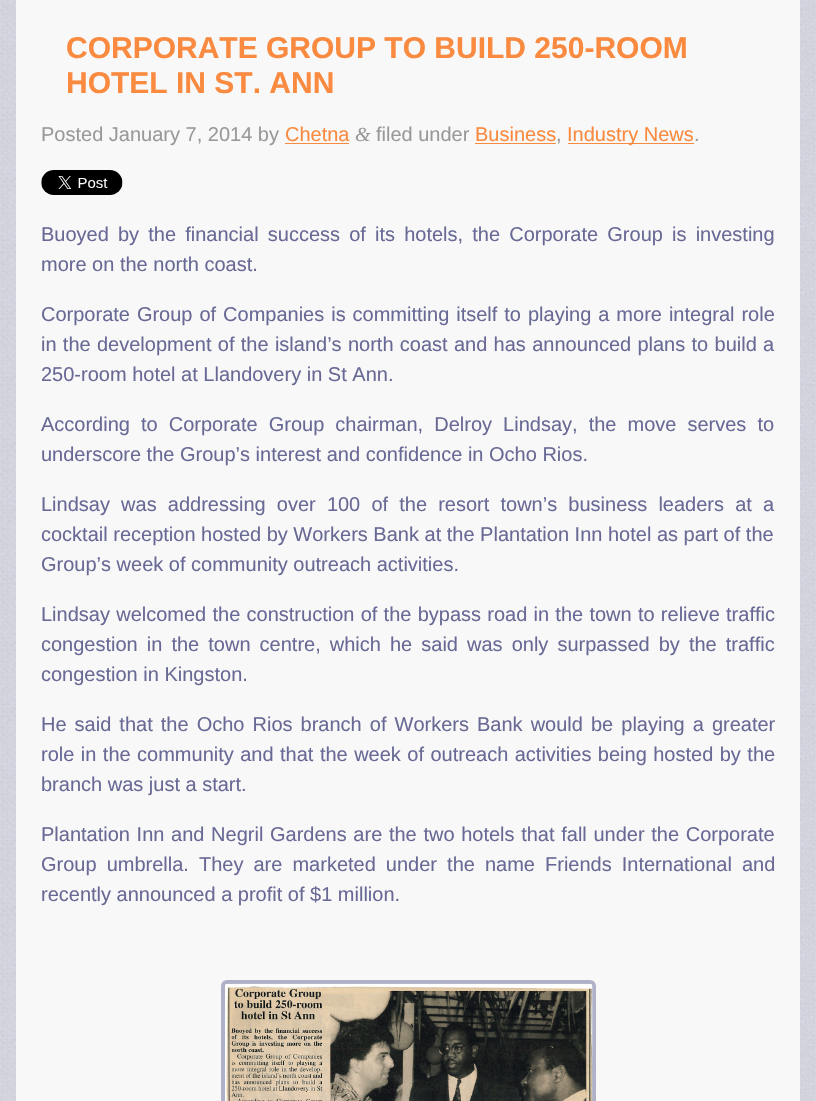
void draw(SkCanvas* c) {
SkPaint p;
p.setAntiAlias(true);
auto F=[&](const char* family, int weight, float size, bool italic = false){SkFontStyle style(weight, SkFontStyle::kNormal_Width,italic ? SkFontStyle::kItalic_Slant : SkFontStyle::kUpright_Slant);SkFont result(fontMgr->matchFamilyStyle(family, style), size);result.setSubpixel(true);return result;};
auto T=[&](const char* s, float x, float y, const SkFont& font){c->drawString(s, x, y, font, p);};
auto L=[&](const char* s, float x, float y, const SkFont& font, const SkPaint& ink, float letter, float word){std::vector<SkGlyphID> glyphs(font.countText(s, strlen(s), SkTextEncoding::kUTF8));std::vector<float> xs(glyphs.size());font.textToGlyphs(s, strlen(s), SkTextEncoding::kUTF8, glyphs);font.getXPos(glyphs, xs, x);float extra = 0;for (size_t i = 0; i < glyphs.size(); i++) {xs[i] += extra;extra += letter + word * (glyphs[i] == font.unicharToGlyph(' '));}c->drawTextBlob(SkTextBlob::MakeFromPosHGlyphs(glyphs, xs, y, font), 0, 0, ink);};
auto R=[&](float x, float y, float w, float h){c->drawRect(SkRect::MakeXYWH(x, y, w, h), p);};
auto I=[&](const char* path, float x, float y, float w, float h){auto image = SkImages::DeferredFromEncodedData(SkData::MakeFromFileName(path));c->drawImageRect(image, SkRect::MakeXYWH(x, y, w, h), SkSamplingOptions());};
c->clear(0xffffffff);
I("1.png",0,0,816,1101);
p.setColor(0xfff8f8f8);
R(16,0,784,1101);
auto f1 = F("Liberation Sans",700,30);
p.setColor(0xfff98a3f);
T("CORPORATE GROUP TO BUILD 250-ROOM",66,58,f1);
T("HOTEL IN ST. ANN",66,93,f1);
auto f2 = F("Liberation Sans",400,20);
p.setColor(0xff999999);
T("Posted January 7, 2014 by",41,141,f2);
p.setColor(0xfff98a3f);
T("Chetna",285,141,f2);
R(285,143,64,1);
auto f3 = F("Liberation Serif",400,20,true);
p.setColor(0xff999999);
T("&",355,141,f3);
T("filed under",376,141,f2);
p.setColor(0xfff98a3f);
T("Business",475,141,f2);
R(475,143,81,1);
p.setColor(0xff999999);
T(",",556,141,f2);
p.setColor(0xfff98a3f);
R(568,143,126,1);
T("Industry News",567,141,f2);
p.setColor(0xff999999);
T(".",694,141,f2);
I("2.png",41,170,82,25);
p.setColor(0xff686995);
L("Buoyed by the financial success of its hotels, the Corporate Group is investing",41,241,f2,p,0,3.6);
T("more on the north coast.",41,271,f2);
L("Corporate Group of Companies is committing itself to playing a more integral role",41,321,f2,p,0,1.4);
L("in the development of the island’s north coast and has announced plans to build a",41,351,f2,p,0,.75);
T("250-room hotel at Llandovery in St Ann.",41,381,f2);
L("According to Corporate Group chairman, Delroy Lindsay, the move serves to",41,431,f2,p,0,5.5);
T("underscore the Group’s interest and confidence in Ocho Rios.",41,461,f2);
L("Lindsay was addressing over 100 of the resort town’s business leaders at a",41,511,f2,p,0,5.6);
T("cocktail reception hosted by Workers Bank at the Plantation Inn hotel as part of the",41,541,f2);
T("Group’s week of community outreach activities.",41,571,f2);
L("Lindsay welcomed the construction of the bypass road in the town to relieve traffic",41,621,f2,p,0,.7);
L("congestion in the town centre, which he said was only surpassed by the traffic",41,651,f2,p,0,3.5);
T("congestion in Kingston.",41,681,f2);
L("He said that the Ocho Rios branch of Workers Bank would be playing a greater",41,731,f2,p,0,2.5);
L("role in the community and that the week of outreach activities being hosted by the",41,761,f2,p,0,.9);
T("branch was just a start.",41,791,f2);
L("Plantation Inn and Negril Gardens are the two hotels that fall under the Corporate",41,841,f2,p,0,1.1);
L("Group umbrella. They are marketed under the name Friends International and",41,871,f2,p,0,4.5);
T("recently announced a profit of $1 million.",41,901,f2);
p.setStroke(true);
p.setStrokeWidth(4);
p.setColor(0xffafb1c8);
c->drawRoundRect(SkRect::MakeXYWH(223,982,371,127),4,4,p);
I("3.png",225,983,368,118);
}
